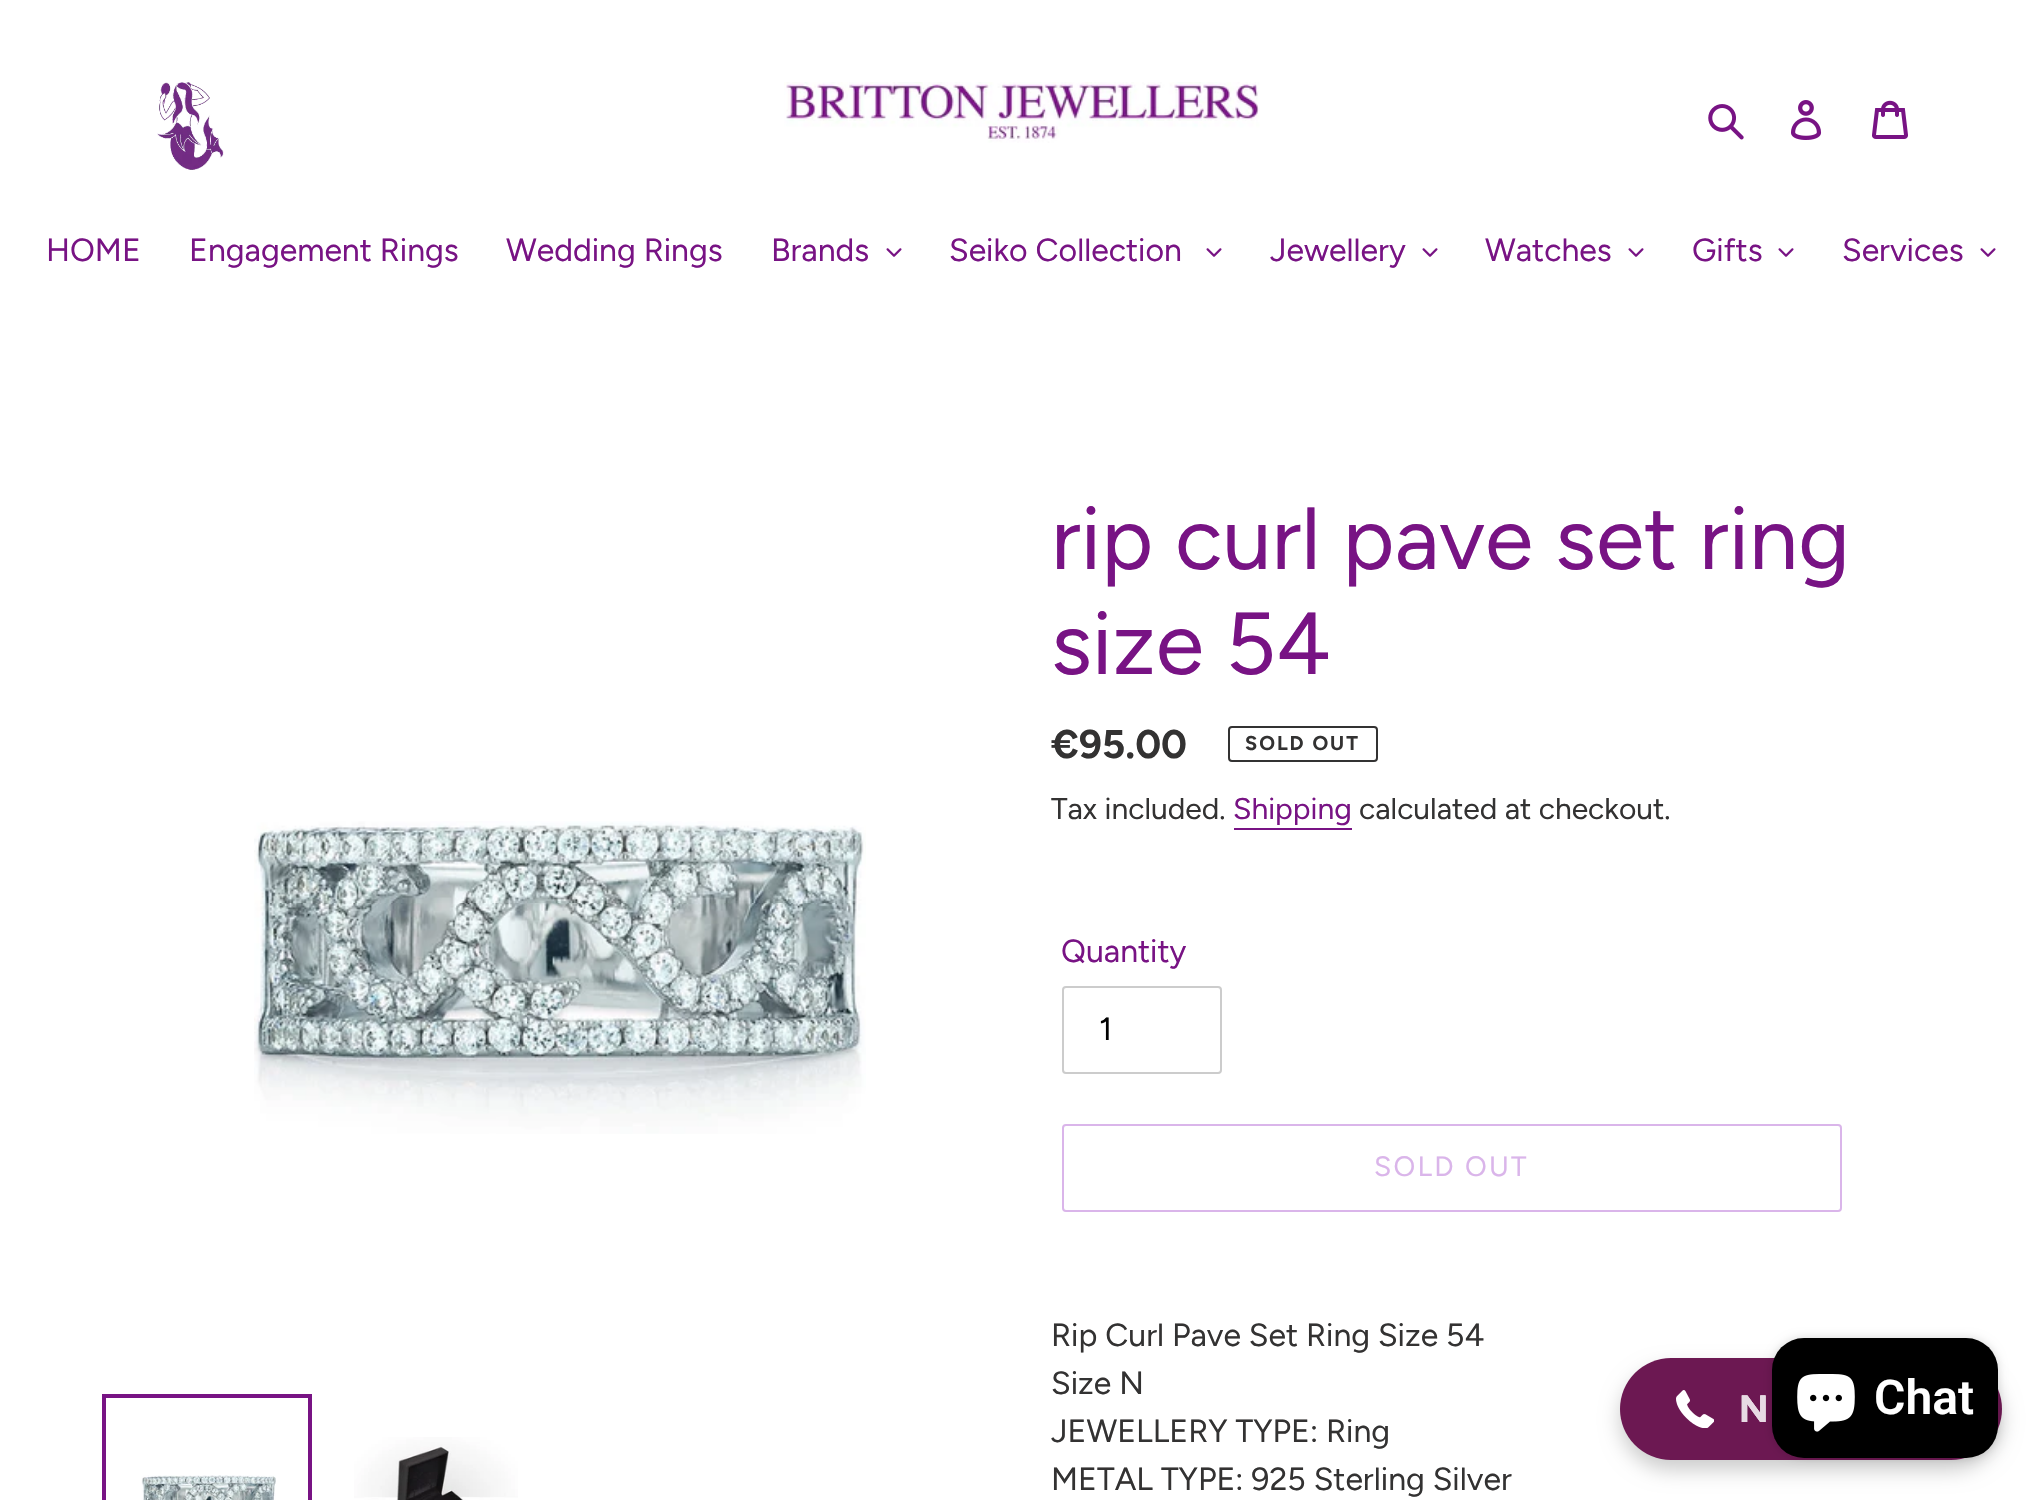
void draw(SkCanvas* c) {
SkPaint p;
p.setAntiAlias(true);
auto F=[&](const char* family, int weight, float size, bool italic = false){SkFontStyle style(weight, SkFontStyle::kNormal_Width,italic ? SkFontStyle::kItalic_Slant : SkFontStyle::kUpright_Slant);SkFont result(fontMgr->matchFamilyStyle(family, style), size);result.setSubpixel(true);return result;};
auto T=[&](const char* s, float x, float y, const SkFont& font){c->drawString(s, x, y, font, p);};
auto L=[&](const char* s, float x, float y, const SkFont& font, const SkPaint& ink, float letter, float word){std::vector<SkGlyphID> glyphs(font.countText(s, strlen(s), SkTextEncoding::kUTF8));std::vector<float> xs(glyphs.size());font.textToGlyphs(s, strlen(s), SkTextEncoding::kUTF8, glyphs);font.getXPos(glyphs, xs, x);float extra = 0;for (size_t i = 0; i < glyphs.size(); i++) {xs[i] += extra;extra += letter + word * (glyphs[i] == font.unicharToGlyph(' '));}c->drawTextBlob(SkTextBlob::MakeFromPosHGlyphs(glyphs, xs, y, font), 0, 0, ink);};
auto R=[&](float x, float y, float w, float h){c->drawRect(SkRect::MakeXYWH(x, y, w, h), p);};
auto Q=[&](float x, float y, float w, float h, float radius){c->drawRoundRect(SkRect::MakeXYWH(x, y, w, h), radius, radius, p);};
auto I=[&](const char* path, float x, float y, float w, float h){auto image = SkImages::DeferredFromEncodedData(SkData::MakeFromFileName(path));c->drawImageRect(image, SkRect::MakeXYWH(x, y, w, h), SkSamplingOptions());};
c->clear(0xffffffff);
I("1.png",784,82,476,61);
I("2.png",1708,104,36,36);
I("3.png",1791,100,31,40);
I("4.png",1872,100,36,39);
I("5.png",157,82,67,88);
auto f1 = F("Figtree",400,32);
p.setColor(0xff781384);
T("HOME",46,261,f1);
T("Engagement Rings",189,261,f1);
T("Wedding Rings",506,261,f1);
T("Brands",771,261,f1);
I("6.png",886,248,16,9);
T("Seiko Collection",949,261,f1);
I("6.png",1206,248,16,9);
T("Jewellery",1270,261,f1);
I("6.png",1422,248,16,9);
T("Watches",1485,261,f1);
I("6.png",1628,248,16,9);
T("Gifts",1692,261,f1);
I("6.png",1778,248,16,9);
T("Services",1842,261,f1);
I("6.png",1980,248,16,9);
I("7.png",254,821,612,313);
p.setStroke(true);
p.setStrokeWidth(4);
c->drawRect(SkRect::MakeXYWH(104,1396,206,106),p);
I("8.png",141,1475,135,25);
I("9.png",354,1437,164,63);
auto f2 = F("Figtree",400,88);
p.setStroke(false);
T("rip curl pave set ring",1051,569,f2);
T("size 54",1051,674,f2);
auto f3 = F("Figtree",700,40);
p.setColor(0xff333232);
T("€95.00",1051,758,f3);
p.setStroke(true);
p.setStrokeWidth(2);
c->drawRoundRect(SkRect::MakeXYWH(1229,727,148,34),3,3,p);
auto f4 = F("Figtree",700,20);
p.setStroke(false);
L("SOLD OUT",1245,750,f4,p,2,0);
auto f5 = F("Figtree",400,30);
T("Tax included.",1051,819,f5);
p.setColor(0xff781384);
T("Shipping",1233,819,f5);
R(1234,828,118,2);
p.setColor(0xff333232);
T("calculated at checkout.",1359,819,f5);
p.setColor(0xff781384);
T("Quantity",1061,962,f1);
p.setStroke(true);
p.setColor(0xffcccccc);
c->drawRoundRect(SkRect::MakeXYWH(1063,987,158,86),3,3,p);
p.setStroke(false);
p.setColor(0xff000000);
T("1",1099,1040,f1);
p.setStroke(true);
p.setColor(0xffdab5ea);
c->drawRoundRect(SkRect::MakeXYWH(1063,1125,778,86),3,3,p);
auto f6 = F("Figtree",400,28);
p.setStroke(false);
L("SOLD OUT",1374,1176,f6,p,2.25,0);
p.setColor(0xff333232);
T("Rip Curl Pave Set Ring Size 54",1051,1346,f1);
T("Size N",1051,1394,f1);
T("JEWELLERY TYPE: Ring",1051,1442,f1);
T("METAL TYPE: 925 Sterling Silver",1051,1490,f1);
p.setColor(0x33000000);
p.setMaskFilter(SkMaskFilter::MakeBlur(kNormal_SkBlurStyle, 10));
c->drawRoundRect(SkRect::MakeXYWH(1620,1368,382,102),51,51,p);
p.setMaskFilter(nullptr);
p.setColor(0xff6c1852);
Q(1620,1358,382,102,51);
p.setColor(0x26000000);
p.setMaskFilter(SkMaskFilter::MakeBlur(kNormal_SkBlurStyle, 5));
c->drawRoundRect(SkRect::MakeXYWH(1772,1338,226,120),32,32,p);
p.setMaskFilter(nullptr);
p.setColor(0xff000000);
Q(1772,1338,226,120,32);
I("10.png",1797,1374,58,58);
auto f7 = F("Roboto",600,48);
p.setColor(0xffffffff);
T("Chat",1874,1414,f7);
I("11.png",1676,1390,38,38);
auto f8 = F("Figtree",700,38);
T("N",1739,1422,f8);
p.setColor(0xffe7dae3);
T("N",1739,1422,f8);
}
